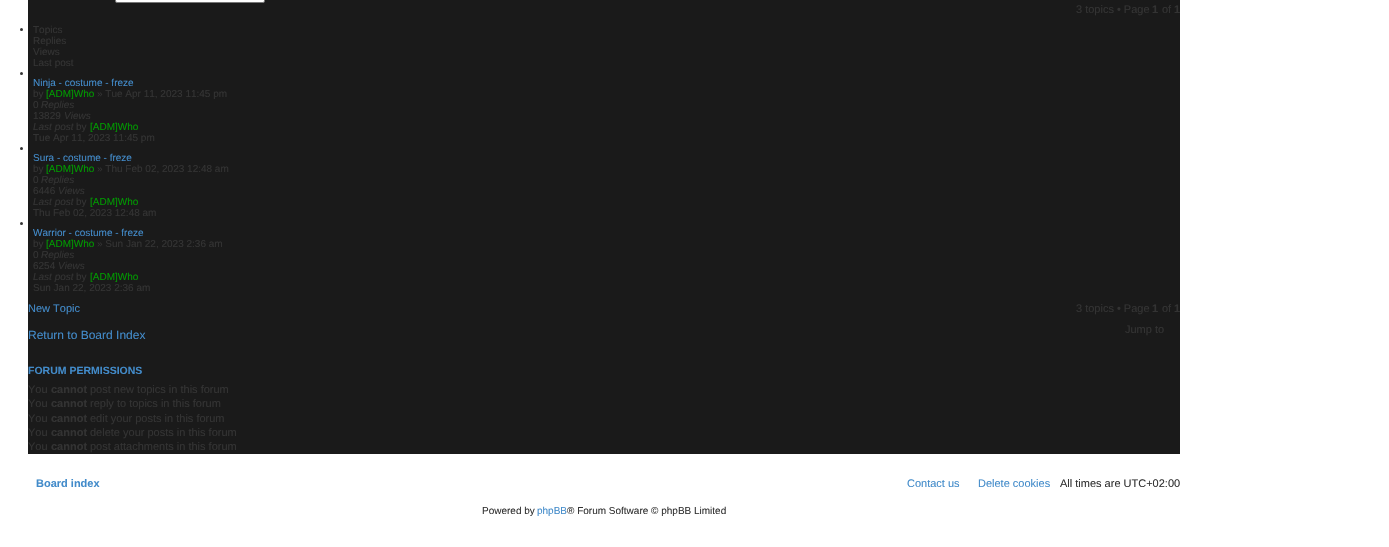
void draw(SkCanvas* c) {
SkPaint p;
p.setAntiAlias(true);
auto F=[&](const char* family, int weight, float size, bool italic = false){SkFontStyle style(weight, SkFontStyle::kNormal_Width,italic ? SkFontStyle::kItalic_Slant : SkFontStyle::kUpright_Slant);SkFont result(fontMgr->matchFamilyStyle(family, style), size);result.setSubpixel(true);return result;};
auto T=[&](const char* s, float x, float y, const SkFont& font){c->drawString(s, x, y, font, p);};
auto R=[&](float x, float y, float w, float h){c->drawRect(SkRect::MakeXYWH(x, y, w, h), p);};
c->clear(0xffffffff);
p.setColor(0xff1a1a1a);
R(28,0,1152,454);
p.setColor(0xffffffff);
c->drawRoundRect(SkRect::MakeXYWH(115.5,-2.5,149,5),1.5,1.5,p);
p.setStroke(true);
p.setStrokeWidth(1);
p.setColor(0xff767676);
c->drawRoundRect(SkRect::MakeXYWH(115.5,-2.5,149,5),1.5,1.5,p);
auto f1 = F("Liberation Sans",400,11);
p.setStroke(false);
p.setColor(0xff333333);
T("3 topics • Page",1076,13,f1);
auto f2 = F("Liberation Sans",700,11);
T("1",1152,13,f2);
T("of",1162,13,f1);
T("1",1174,13,f2);
c->drawCircle(21.5,29.5,1.5,p);
auto f3 = F("Liberation Sans",400,10);
T("Topics",33,33,f3);
T("Replies",33,44,f3);
T("Views",33,55,f3);
T("Last post",33,66,f3);
c->drawCircle(21.5,73.5,1.5,p);
p.setColor(0xff428bca);
T("Ninja - costume - freze",33,86,f3);
p.setColor(0xff333333);
T("by",33,97,f3);
p.setColor(0xff009900);
T("[ADM]Who",46,97,f3);
p.setColor(0xff333333);
T("» Tue Apr 11, 2023 11:45 pm",97,97,f3);
T("0",33,108,f3);
auto f4 = F("Liberation Sans",400,10,true);
T("Replies",41,108,f4);
T("13829",33,119,f3);
T("Views",64,119,f4);
T("Last post",33,130,f4);
T("by",76,130,f3);
p.setColor(0xff009900);
T("[ADM]Who",90,130,f3);
p.setColor(0xff333333);
T("Tue Apr 11, 2023 11:45 pm",33,141,f3);
c->drawCircle(21.5,148.5,1.5,p);
p.setColor(0xff428bca);
T("Sura - costume - freze",33,161,f3);
p.setColor(0xff333333);
T("by",33,172,f3);
p.setColor(0xff009900);
T("[ADM]Who",46,172,f3);
p.setColor(0xff333333);
T("» Thu Feb 02, 2023 12:48 am",97,172,f3);
T("0",33,183,f3);
T("Replies",41,183,f4);
T("6446",33,194,f3);
T("Views",58,194,f4);
T("Last post",33,205,f4);
T("by",76,205,f3);
p.setColor(0xff009900);
T("[ADM]Who",90,205,f3);
p.setColor(0xff333333);
T("Thu Feb 02, 2023 12:48 am",33,216,f3);
c->drawCircle(21.5,223.5,1.5,p);
p.setColor(0xff428bca);
T("Warrior - costume - freze",33,236,f3);
p.setColor(0xff333333);
T("by",33,247,f3);
p.setColor(0xff009900);
T("[ADM]Who",46,247,f3);
p.setColor(0xff333333);
T("» Sun Jan 22, 2023 2:36 am",97,247,f3);
T("0",33,258,f3);
T("Replies",41,258,f4);
T("6254",33,269,f3);
T("Views",58,269,f4);
T("Last post",33,280,f4);
T("by",76,280,f3);
p.setColor(0xff009900);
T("[ADM]Who",90,280,f3);
p.setColor(0xff333333);
T("Sun Jan 22, 2023 2:36 am",33,291,f3);
p.setColor(0xff428bca);
T("New Topic",28,312,f1);
p.setColor(0xff333333);
T("3 topics • Page",1076,312,f1);
T("1",1152,312,f2);
T("of",1162,312,f1);
T("1",1174,312,f2);
auto f5 = F("Liberation Sans",400,12);
p.setColor(0xff428bca);
T("Return to Board Index",28,339,f5);
p.setColor(0xff333333);
T("Jump to",1125,333,f1);
auto f6 = F("Liberation Sans",700,10.5);
p.setColor(0xff428bca);
T("FORUM PERMISSIONS",28,374,f6);
p.setColor(0xff333333);
T("You",28,393,f1);
T("cannot",51,393,f2);
T("post new topics in this forum",90,393,f1);
T("You",28,407,f1);
T("cannot",51,407,f2);
T("reply to topics in this forum",90,407,f1);
T("You",28,422,f1);
T("cannot",51,422,f2);
T("edit your posts in this forum",90,422,f1);
T("You",28,436,f1);
T("cannot",51,436,f2);
T("delete your posts in this forum",90,436,f1);
T("You",28,450,f1);
T("cannot",51,450,f2);
T("post attachments in this forum",90,450,f1);
p.setColor(0xff428bca);
T("Board index",36,487,f2);
T("Contact us",907,487,f1);
T("Delete cookies",978,487,f1);
p.setColor(0xff333333);
T("All times are UTC+02:00",1060,487,f1);
T("Powered by",482,514,f3);
p.setColor(0xff428bca);
T("phpBB",537,514,f3);
p.setColor(0xff333333);
T("® Forum Software © phpBB Limited",567,514,f3);
}
